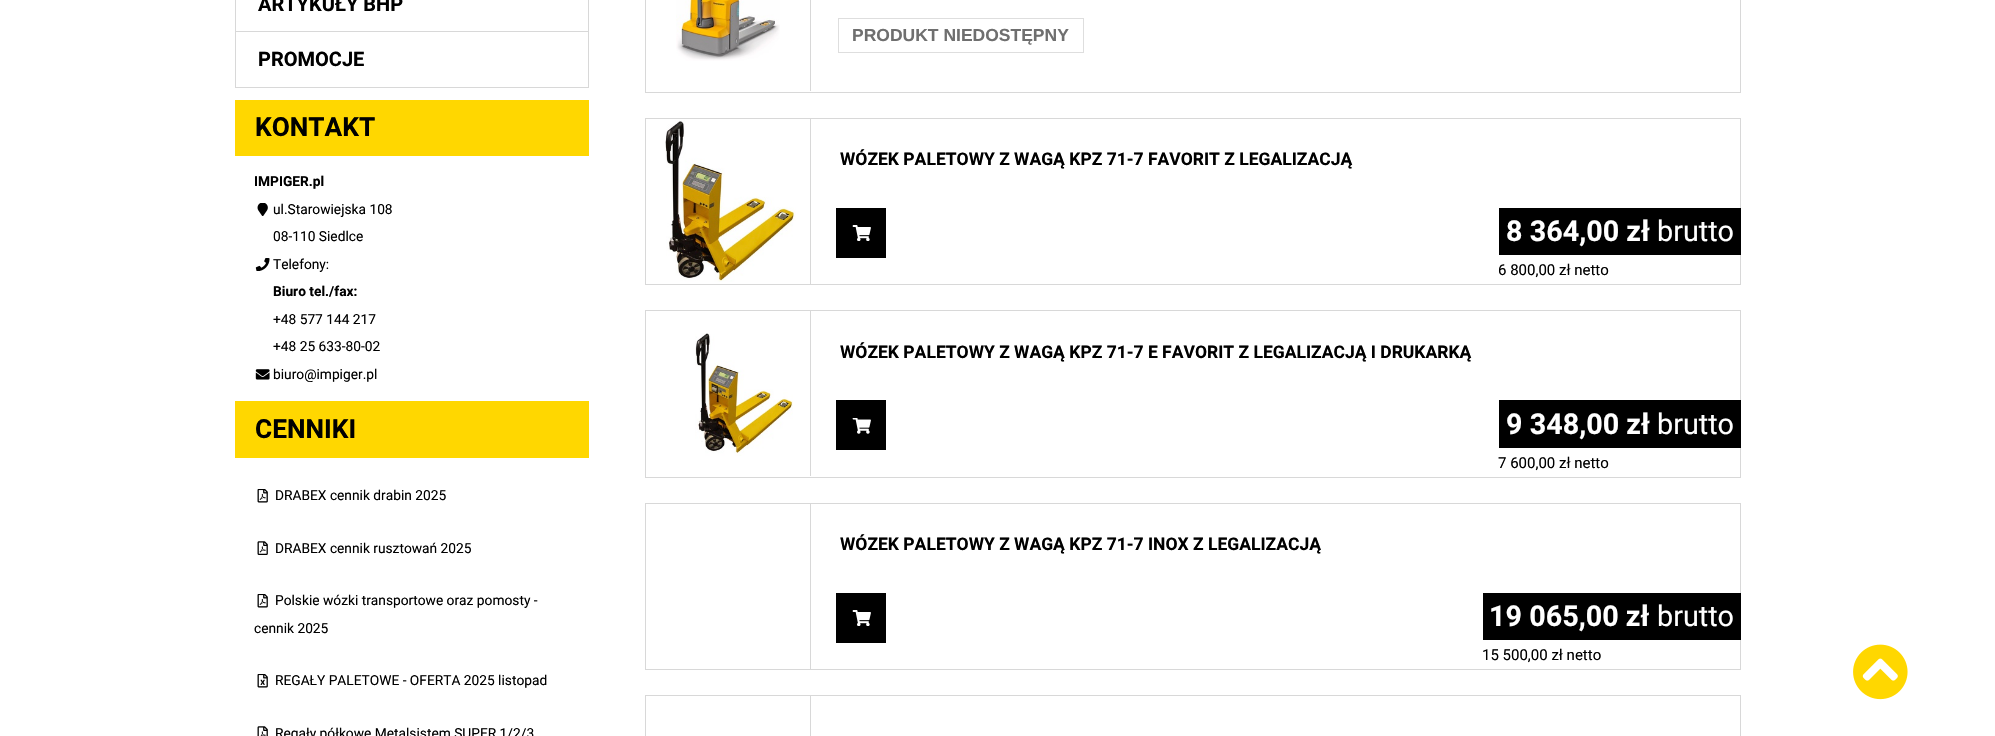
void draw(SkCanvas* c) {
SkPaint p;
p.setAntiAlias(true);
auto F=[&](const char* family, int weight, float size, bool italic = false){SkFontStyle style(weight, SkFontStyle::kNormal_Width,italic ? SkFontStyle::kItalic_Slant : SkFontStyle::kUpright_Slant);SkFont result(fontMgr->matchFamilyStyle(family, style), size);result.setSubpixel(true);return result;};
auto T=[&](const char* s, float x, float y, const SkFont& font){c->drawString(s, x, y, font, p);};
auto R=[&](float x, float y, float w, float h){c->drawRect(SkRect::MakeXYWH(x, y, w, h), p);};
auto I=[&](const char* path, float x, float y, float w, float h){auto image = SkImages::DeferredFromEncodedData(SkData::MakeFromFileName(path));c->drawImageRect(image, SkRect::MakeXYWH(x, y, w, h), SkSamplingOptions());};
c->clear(0xffffffff);
p.setColor(0xffd8d8d8);
R(588,0,1,31);
R(235,0,1,31);
auto f1 = F("Roboto",700,20);
p.setColor(0xff000000);
T("ARTYKUŁY BHP",258,11,f1);
p.setStroke(true);
p.setStrokeWidth(1);
p.setColor(0xffd8d8d8);
c->drawRect(SkRect::MakeXYWH(235.5,31.5,353,56),p);
p.setStroke(false);
p.setColor(0xff000000);
T("PROMOCJE",258,66,f1);
p.setColor(0xffffd700);
R(235,100,354,56);
auto f2 = F("Roboto",700,26.25);
p.setColor(0xff000000);
T("KONTAKT",255,136,f2);
auto f3 = F("Roboto",700,13.75);
T("IMPIGER.pl",254,186,f3);
I("1.png",257,203,11,13);
auto f4 = F("Roboto",400,13.75);
T("ul.Starowiejska 108",273,214,f4);
T("08-110 Siedlce",273,241,f4);
I("2.png",255,258,15,13);
T("Telefony:",273,269,f4);
T("Biuro tel./fax:",273,296,f3);
T("+48 577 144 217",273,324,f4);
T("+48 25 633-80-02",273,351,f4);
I("3.png",255,369,15,11);
T("biuro@impiger.pl",273,379,f4);
p.setColor(0xffffd700);
R(235,401,354,57);
p.setColor(0xff000000);
T("CENNIKI",255,438,f2);
I("4.png",257,489,11,14);
T("DRABEX cennik drabin 2025",275,500,f4);
I("5.png",257,541,11,14);
T("DRABEX cennik rusztowań 2025",275,553,f4);
I("4.png",257,594,11,14);
T("Polskie wózki transportowe oraz pomosty -",275,605,f4);
T("cennik 2025",254,633,f4);
I("6.png",257,674,11,14);
T("REGAŁY PALETOWE - OFERTA 2025 listopad",275,685,f4);
I("7.png",257,726,11,10);
T("Regały półkowe Metalsistem SUPER 1/2/3",275,738,f4);
p.setStroke(true);
p.setColor(0xffd8d8d8);
c->drawRect(SkRect::MakeXYWH(645.5,-.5,1095,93),p);
p.setStroke(false);
R(810,0,1,91);
I("8.png",676,0,104,61);
p.setStroke(true);
p.setColor(0xffdedede);
c->drawRect(SkRect::MakeXYWH(838.5,18.5,245,34),p);
auto f5 = F("Liberation Sans",700,17.5);
p.setStroke(false);
p.setColor(0xff6f6f6f);
T("PRODUKT NIEDOSTĘPNY",852,41,f5);
p.setStroke(true);
p.setColor(0xffd8d8d8);
c->drawRect(SkRect::MakeXYWH(645.5,118.5,1095,166),p);
p.setStroke(false);
R(810,119,1,165);
I("9.png",665,120,131,162);
auto f6 = F("Roboto",700,17.5);
p.setColor(0xff000000);
T("WÓZEK PALETOWY Z WAGĄ KPZ 71-7 FAVORIT Z LEGALIZACJĄ",840,165,f6);
R(836,208,50,50);
I("10.png",852,225,19,16);
R(1499,208,242,47);
auto f7 = F("Roboto",700,28.75);
p.setColor(0xffffffff);
T("8 364,00 zł",1506,241,f7);
auto f8 = F("Roboto",400,28.75);
T("brutto",1657,241,f8);
auto f9 = F("Roboto",400,15);
p.setColor(0xff000000);
T("6 800,00 zł netto",1498,275,f9);
p.setStroke(true);
p.setColor(0xffd8d8d8);
c->drawRect(SkRect::MakeXYWH(645.5,310.5,1095,167),p);
p.setStroke(false);
R(810,311,1,165);
I("11.png",695,333,98,123);
p.setColor(0xff000000);
T("WÓZEK PALETOWY Z WAGĄ KPZ 71-7 E FAVORIT Z LEGALIZACJĄ I DRUKARKĄ",840,358,f6);
R(836,400,50,50);
I("12.png",852,418,19,16);
R(1499,400,242,48);
p.setColor(0xffffffff);
T("9 348,00 zł",1506,434,f7);
T("brutto",1657,434,f8);
p.setColor(0xff000000);
T("7 600,00 zł netto",1498,468,f9);
p.setStroke(true);
p.setColor(0xffd8d8d8);
c->drawRect(SkRect::MakeXYWH(645.5,503.5,1095,166),p);
p.setStroke(false);
R(810,504,1,165);
p.setColor(0xff000000);
T("WÓZEK PALETOWY Z WAGĄ KPZ 71-7 INOX Z LEGALIZACJĄ",840,550,f6);
R(836,593,50,50);
I("10.png",852,610,19,16);
R(1483,593,258,47);
p.setColor(0xffffffff);
T("19 065,00 zł",1489,626,f7);
T("brutto",1657,626,f8);
p.setColor(0xff000000);
T("15 500,00 zł netto",1482,660,f9);
p.setStroke(true);
p.setColor(0xffd8d8d8);
c->drawRect(SkRect::MakeXYWH(645.5,695.5,1095,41),p);
p.setStroke(false);
R(810,696,1,40);
I("13.png",1853,644,55,56);
}
